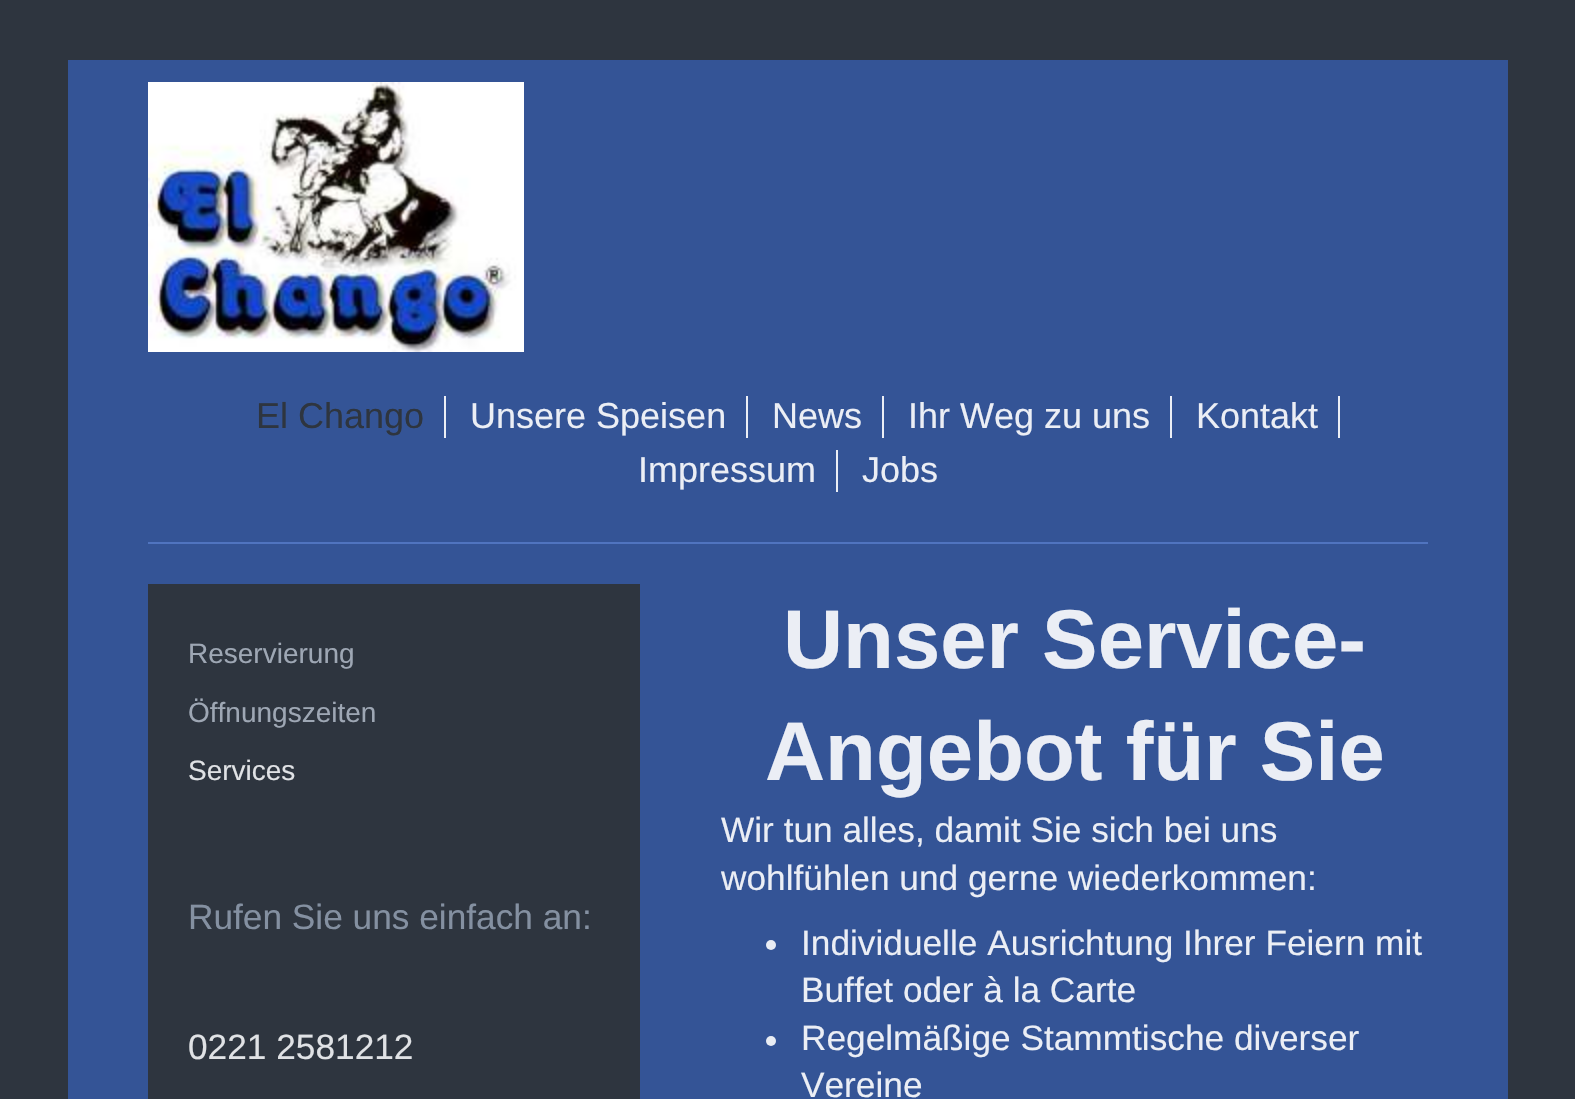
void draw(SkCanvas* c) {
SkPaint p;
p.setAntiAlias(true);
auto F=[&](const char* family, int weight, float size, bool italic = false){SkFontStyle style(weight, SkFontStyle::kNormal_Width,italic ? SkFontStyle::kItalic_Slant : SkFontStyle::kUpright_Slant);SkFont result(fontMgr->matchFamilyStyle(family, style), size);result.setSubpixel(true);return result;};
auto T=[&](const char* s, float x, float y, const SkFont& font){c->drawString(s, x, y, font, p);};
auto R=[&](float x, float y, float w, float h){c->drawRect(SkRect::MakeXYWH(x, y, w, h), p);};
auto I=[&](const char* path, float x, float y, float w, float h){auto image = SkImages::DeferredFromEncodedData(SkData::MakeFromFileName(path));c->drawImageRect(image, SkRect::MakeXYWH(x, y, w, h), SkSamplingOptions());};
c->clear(0xff2e353f);
p.setColor(0xff345496);
R(68,60,1440,1039);
I("1.png",148,82,376,270);
p.setColor(0xff5074bf);
R(148,542,1280,2);
p.setColor(0xffebeef5);
R(444,396,2,42);
auto f1 = F("Liberation Sans",400,36);
p.setColor(0xff2e353f);
T("El Chango",256,428,f1);
p.setColor(0xffebeef5);
R(746,396,2,42);
T("Unsere Speisen",470,428,f1);
R(882,396,2,42);
T("News",772,428,f1);
R(1170,396,2,42);
T("Ihr Weg zu uns",908,428,f1);
R(1338,396,2,42);
T("Kontakt",1196,428,f1);
R(836,450,2,42);
T("Impressum",638,482,f1);
T("Jobs",862,482,f1);
p.setColor(0xff2e353f);
R(148,584,492,515);
auto f2 = F("Liberation Sans",400,28);
p.setColor(0xff9ea7b4);
T("Reservierung",188,663,f2);
T("Öffnungszeiten",188,722,f2);
p.setColor(0xffe0e2e5);
T("Services",188,780,f2);
auto f3 = F("Liberation Sans",400,35.25);
p.setColor(0xff8490a1);
T("Rufen Sie uns einfach an:",188,929,f3);
p.setColor(0xffe0e2e5);
T("0221 2581212",188,1059,f3);
auto f4 = F("Liberation Sans",700,83.25);
p.setColor(0xffebeef5);
T("Unser Service-",783,668,f4);
T("Angebot für Sie",765,780,f4);
T("Wir tun alles, damit Sie sich bei uns",721,842,f3);
T("wohlfühlen und gerne wiederkommen:",721,890,f3);
p.setColor(0xffe9edf4);
c->drawCircle(771,945,5,p);
p.setColor(0xffebeef5);
T("Individuelle Ausrichtung Ihrer Feiern mit",801,955,f3);
T("Buffet oder à la Carte",801,1002,f3);
p.setColor(0xffe9edf4);
c->drawCircle(771,1041,5,p);
p.setColor(0xffebeef5);
T("Regelmäßige Stammtische diverser",801,1050,f3);
T("Vereine",801,1097,f3);
}
